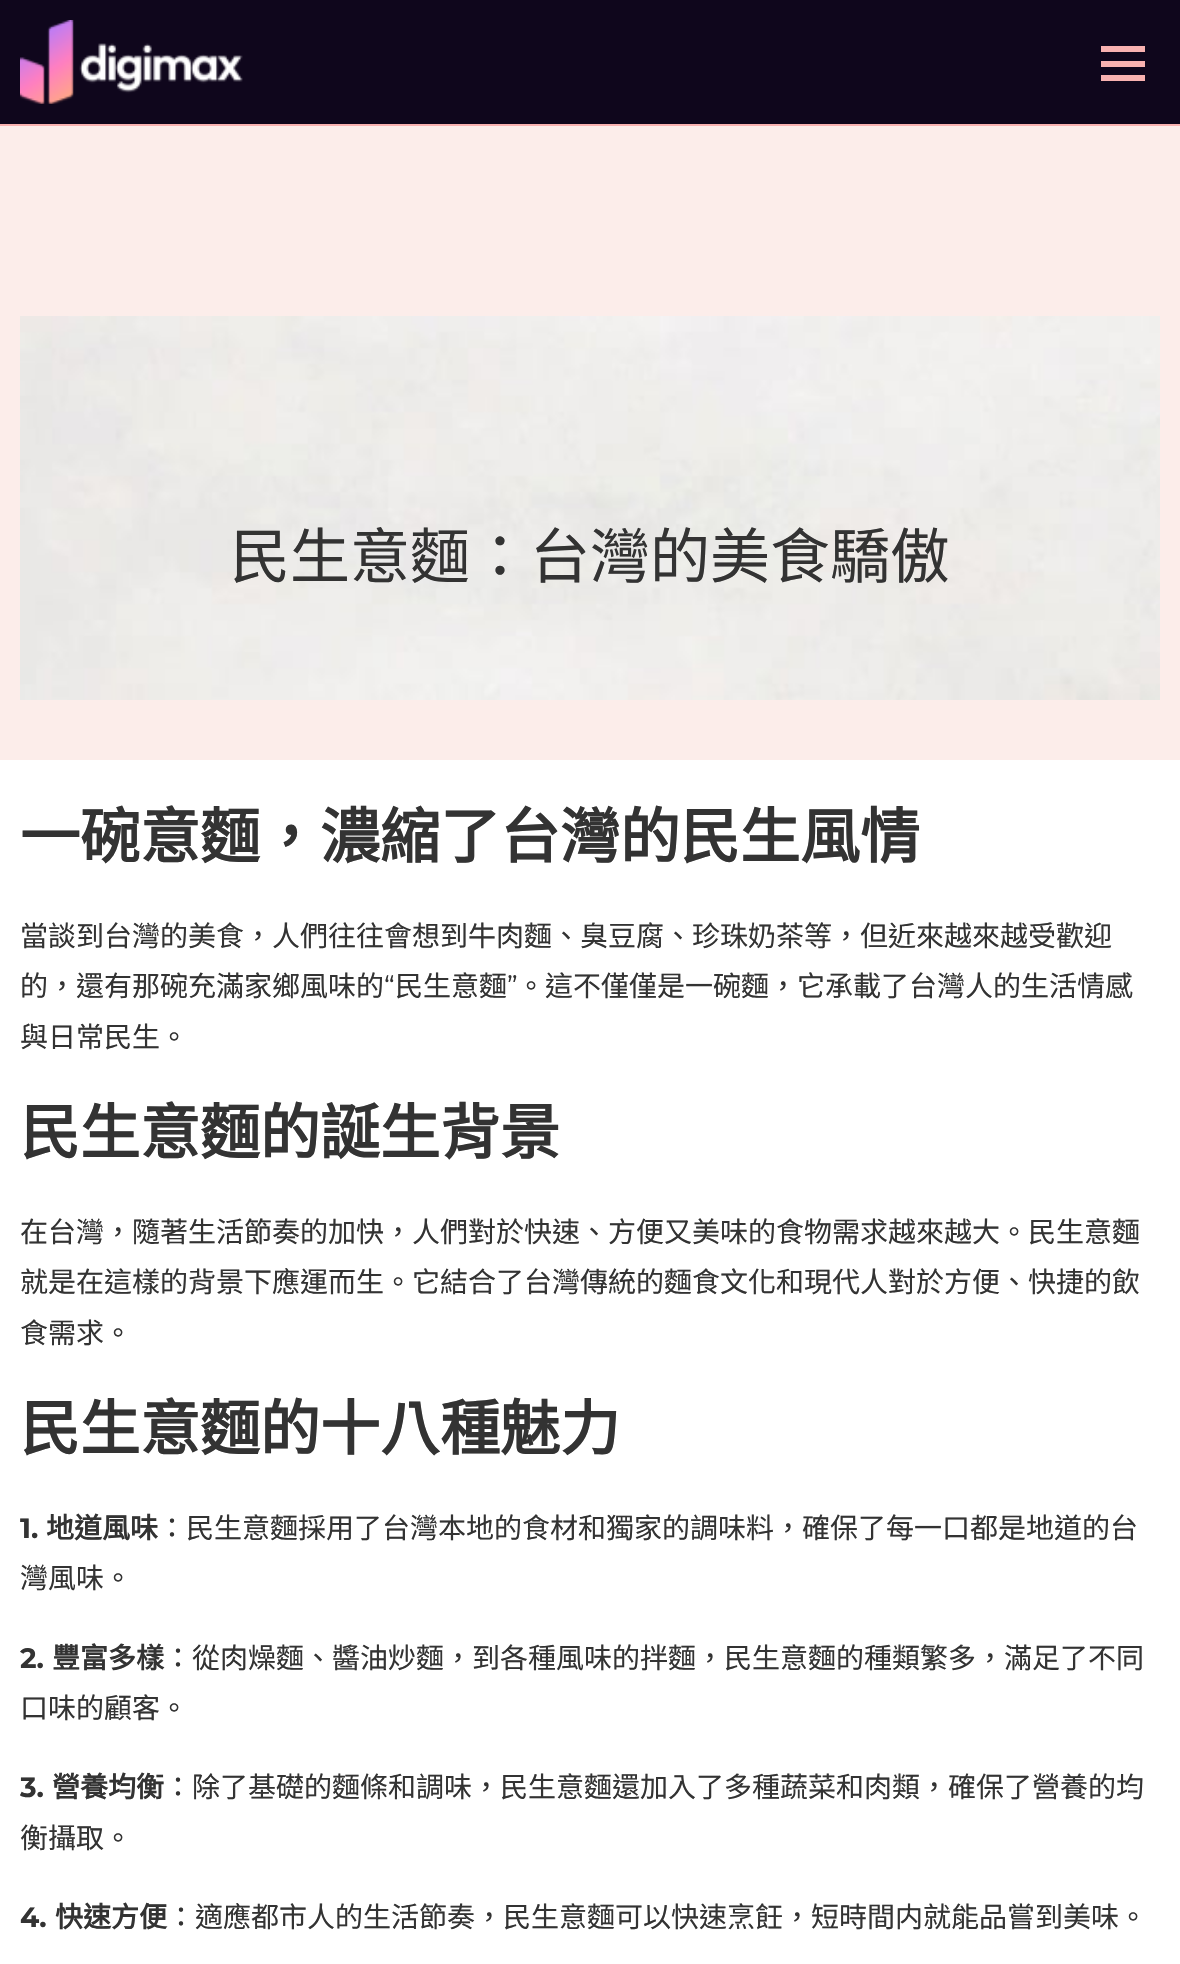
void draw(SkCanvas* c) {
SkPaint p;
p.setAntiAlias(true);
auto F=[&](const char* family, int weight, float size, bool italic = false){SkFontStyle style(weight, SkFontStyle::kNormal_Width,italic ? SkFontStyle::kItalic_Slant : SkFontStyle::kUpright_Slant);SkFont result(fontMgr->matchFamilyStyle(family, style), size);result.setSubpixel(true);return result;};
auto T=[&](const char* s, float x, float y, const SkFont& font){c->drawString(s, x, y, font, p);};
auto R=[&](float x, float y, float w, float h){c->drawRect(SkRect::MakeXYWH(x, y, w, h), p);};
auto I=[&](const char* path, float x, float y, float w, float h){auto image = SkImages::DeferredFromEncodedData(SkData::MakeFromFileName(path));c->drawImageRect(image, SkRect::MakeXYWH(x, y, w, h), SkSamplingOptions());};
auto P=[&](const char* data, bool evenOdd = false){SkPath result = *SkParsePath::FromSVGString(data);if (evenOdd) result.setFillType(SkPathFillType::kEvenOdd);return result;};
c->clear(0xffffffff);
p.setColor(0xff0f061c);
R(0,0,1180,124);
I("1.png",20,20,223,84);
p.setColor(0xfff8b1b0);
c->drawPath(P("M1145 46v6h-44v-6zm-44 21h44v-6h-44zm0 14h44v-6h-44z"),p);
R(0,124,1180,2);
p.setColor(0xfffcedea);
R(0,126,1180,634);
I("2.png",20,316,1140,384);
auto f1 = F("Noto Sans CJK TC",400,60);
p.setColor(0xff333333);
T("民生意麵：台灣的美食驕傲",230,578,f1);
auto f2 = F("Noto Sans CJK TC",700,60);
T("一碗意麵，濃縮了台灣的民生風情",20,858,f2);
auto f3 = F("Noto Sans CJK TC",400,28);
T("當談到台灣的美食，人們往往會想到牛肉麵、臭豆腐、珍珠奶茶等，但近來越來越受歡迎",20,946,f3);
T("的，還有那碗充滿家鄉風味的",20,996,f3);
auto f4 = F("Montserrat",400,28);
T("“",384,996,f4);
T("民生意麵",395,996,f3);
T("”",507,996,f4);
T("。這不僅僅是一碗麵，它承載了台灣人的生活情感",517,996,f3);
T("與日常民生。",20,1047,f3);
T("民生意麵的誕生背景",20,1154,f2);
T("在台灣，隨著生活節奏的加快，人們對於快速、方便又美味的食物需求越來越大。民生意麵",20,1242,f3);
T("就是在這樣的背景下應運而生。它結合了台灣傳統的麵食文化和現代人對於方便、快捷的飲",20,1292,f3);
T("食需求。",20,1343,f3);
T("民生意麵的十八種魅力",20,1450,f2);
auto f5 = F("Montserrat",700,28);
T("1.",20,1538,f5);
auto f6 = F("Noto Sans CJK TC",700,28);
T("地道風味",46,1538,f6);
T("：民生意麵採用了台灣本地的食材和獨家的調味料，確保了每一口都是地道的台",158,1538,f3);
T("灣風味。",20,1588,f3);
T("2.",20,1668,f5);
T("豐富多樣",52,1668,f6);
T("：從肉燥麵、醬油炒麵，到各種風味的拌麵，民生意麵的種類繁多，滿足了不同",164,1668,f3);
T("口味的顧客。",20,1718,f3);
T("3.",20,1797,f5);
T("營養均衡",52,1797,f6);
T("：除了基礎的麵條和調味，民生意麵還加入了多種蔬菜和肉類，確保了營養的均",164,1797,f3);
T("衡攝取。",20,1848,f3);
T("4.",20,1927,f5);
T("快速方便",55,1927,f6);
T("：適應都市人的生活節奏，民生意麵可以快速烹飪，短時間内就能品嘗到美味。",167,1927,f3);
}
